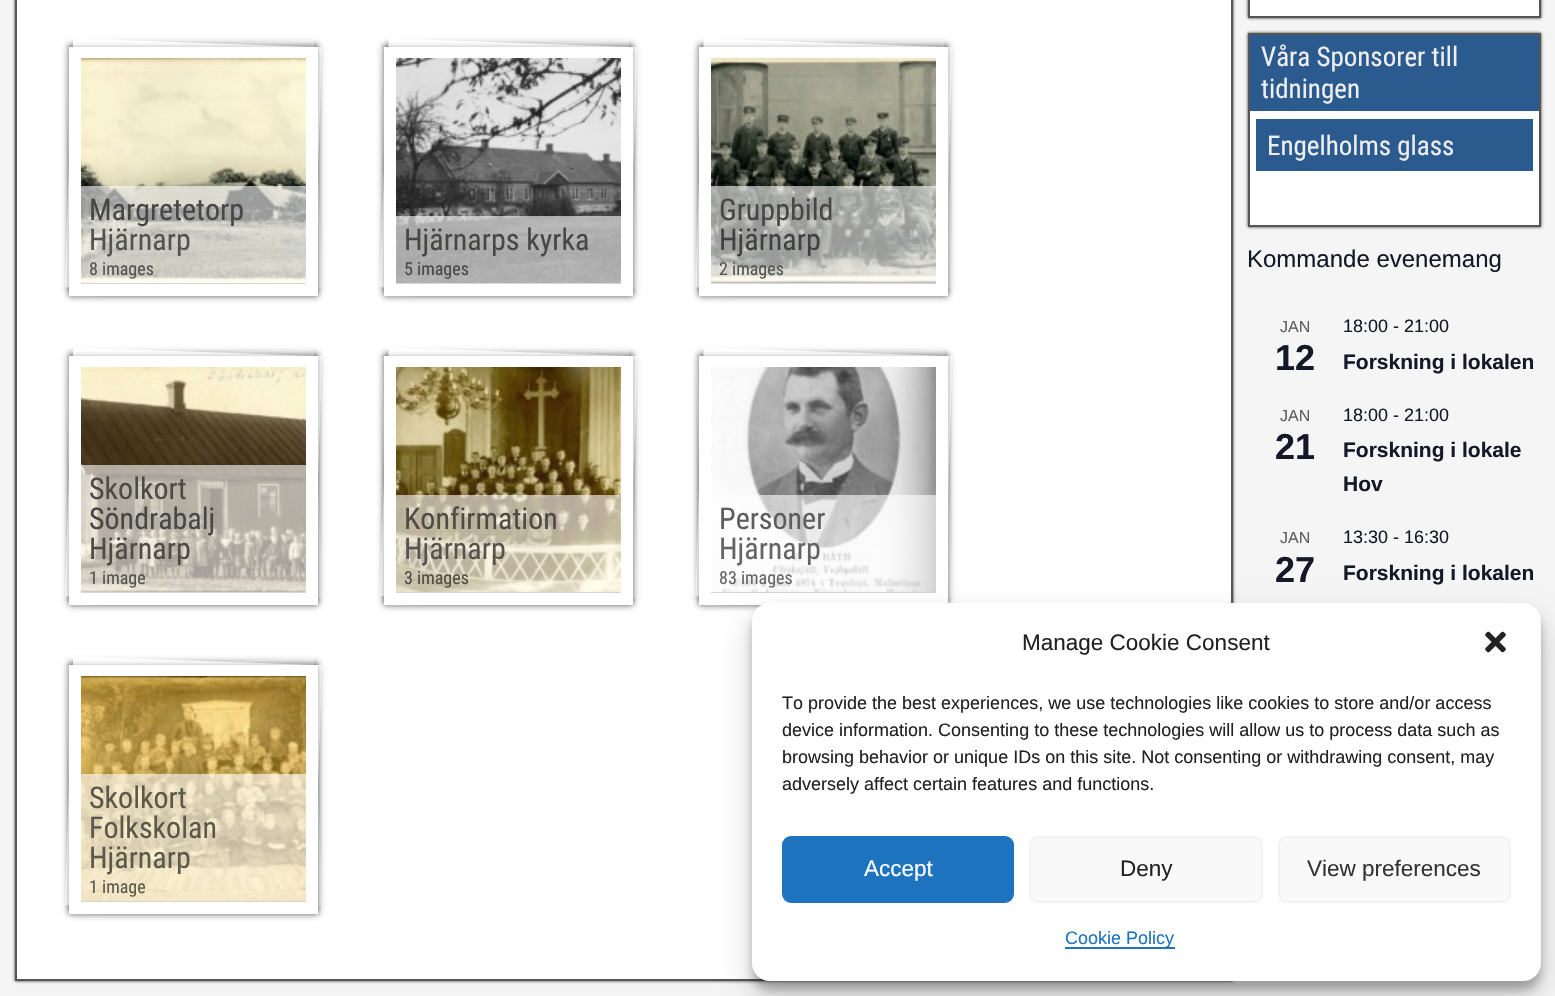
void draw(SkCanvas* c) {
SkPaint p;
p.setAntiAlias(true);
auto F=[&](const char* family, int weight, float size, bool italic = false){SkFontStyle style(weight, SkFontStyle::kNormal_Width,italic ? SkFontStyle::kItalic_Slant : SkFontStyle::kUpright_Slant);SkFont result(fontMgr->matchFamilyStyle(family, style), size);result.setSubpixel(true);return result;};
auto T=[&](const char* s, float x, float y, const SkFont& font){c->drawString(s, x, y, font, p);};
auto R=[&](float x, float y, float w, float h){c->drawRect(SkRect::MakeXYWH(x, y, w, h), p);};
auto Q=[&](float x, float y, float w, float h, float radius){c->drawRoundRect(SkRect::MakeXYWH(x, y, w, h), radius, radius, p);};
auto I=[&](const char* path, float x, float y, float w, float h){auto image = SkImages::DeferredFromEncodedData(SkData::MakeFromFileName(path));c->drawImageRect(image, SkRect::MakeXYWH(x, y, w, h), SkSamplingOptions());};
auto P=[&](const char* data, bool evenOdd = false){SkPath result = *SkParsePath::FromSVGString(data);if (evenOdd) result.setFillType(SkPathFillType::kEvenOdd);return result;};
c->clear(0xfff5f5f5);
p.setColor(0xff333333);
p.setMaskFilter(SkMaskFilter::MakeBlur(kNormal_SkBlurStyle, 1.5));
c->drawRect(SkRect::MakeXYWH(15,-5,1218,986),p);
p.setMaskFilter(nullptr);
p.setColor(0xffffffff);
c->drawRect(SkRect::MakeXYWH(16,-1,1216,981),p);
p.setStroke(true);
p.setStrokeWidth(2);
p.setColor(0xff555555);
c->drawRect(SkRect::MakeXYWH(16,-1,1216,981),p);
p.setStroke(false);
p.setColor(0x4d000000);
p.setMaskFilter(SkMaskFilter::MakeBlur(kNormal_SkBlurStyle, 3));
c->drawRect(SkRect::MakeXYWH(69,45,249,249),p);
p.setMaskFilter(nullptr);
p.setStroke(true);
p.setStrokeWidth(12);
p.setColor(0xffffffff);
c->drawPath(P("M71 54.5l237-8.5l8 237l-237 8z"),p);
p.setStroke(false);
p.setColor(0x4d000000);
p.setMaskFilter(SkMaskFilter::MakeBlur(kNormal_SkBlurStyle, 3));
c->drawRect(SkRect::MakeXYWH(69,44,249,249),p);
p.setMaskFilter(nullptr);
p.setStroke(true);
p.setColor(0xffffffff);
c->drawPath(P("M79 44.5l237 8.5l-8 236.5l-237-8z"),p);
p.setStroke(false);
p.setColor(0x66000000);
p.setMaskFilter(SkMaskFilter::MakeBlur(kNormal_SkBlurStyle, 3));
c->drawRect(SkRect::MakeXYWH(69,48,249,249),p);
p.setMaskFilter(nullptr);
p.setStroke(true);
p.setColor(0xffffffff);
c->drawRect(SkRect::MakeXYWH(75,53,237,237),p);
I("1.png",81,58,225,225);
p.setStroke(false);
p.setColor(0x99ffffff);
R(81,186,225,98);
auto f1 = F("Roboto Condensed",400,30);
p.setColor(0xff474745);
T("Margretetorp",89,220,f1);
p.setColor(0xff53534f);
T("Hjärnarp",89,250,f1);
auto f2 = F("Roboto Condensed",400,18);
T("8 images",89,275,f2);
p.setColor(0x4d000000);
p.setMaskFilter(SkMaskFilter::MakeBlur(kNormal_SkBlurStyle, 3));
c->drawRect(SkRect::MakeXYWH(384,45,249,249),p);
p.setMaskFilter(nullptr);
p.setStroke(true);
p.setColor(0xffffffff);
c->drawPath(P("M386 54.5l237-8.5l8.5 237l-237 8z"),p);
p.setStroke(false);
p.setColor(0x4d000000);
p.setMaskFilter(SkMaskFilter::MakeBlur(kNormal_SkBlurStyle, 3));
c->drawRect(SkRect::MakeXYWH(384,44,249,249),p);
p.setMaskFilter(nullptr);
p.setStroke(true);
p.setColor(0xffffffff);
c->drawPath(P("M394.5 44.5l237 8.5l-8.5 236.5l-237-8z"),p);
p.setStroke(false);
p.setColor(0x66000000);
p.setMaskFilter(SkMaskFilter::MakeBlur(kNormal_SkBlurStyle, 3));
c->drawRect(SkRect::MakeXYWH(384,48,249,249),p);
p.setMaskFilter(nullptr);
p.setStroke(true);
p.setColor(0xffffffff);
c->drawRect(SkRect::MakeXYWH(390,53,237,237),p);
I("2.png",396,58,225,225);
p.setStroke(false);
p.setColor(0x99ffffff);
R(396,216,225,68);
p.setColor(0xff474745);
T("Hjärnarps kyrka",404,250,f1);
T("5 images",404,275,f2);
p.setColor(0x4d000000);
p.setMaskFilter(SkMaskFilter::MakeBlur(kNormal_SkBlurStyle, 3));
c->drawRect(SkRect::MakeXYWH(699,45,249,249),p);
p.setMaskFilter(nullptr);
p.setStroke(true);
p.setColor(0xffffffff);
c->drawPath(P("M701.5 54.5l237-8.5l8 237l-237 8z"),p);
p.setStroke(false);
p.setColor(0x4d000000);
p.setMaskFilter(SkMaskFilter::MakeBlur(kNormal_SkBlurStyle, 3));
c->drawRect(SkRect::MakeXYWH(699,44,249,249),p);
p.setMaskFilter(nullptr);
p.setStroke(true);
p.setColor(0xffffffff);
c->drawPath(P("M709.5 44.5l237 8.5l-8 236.5l-237-8z"),p);
p.setStroke(false);
p.setColor(0x66000000);
p.setMaskFilter(SkMaskFilter::MakeBlur(kNormal_SkBlurStyle, 3));
c->drawRect(SkRect::MakeXYWH(699,48,249,249),p);
p.setMaskFilter(nullptr);
p.setStroke(true);
p.setColor(0xffffffff);
c->drawRect(SkRect::MakeXYWH(705,53,237,237),p);
I("3.png",711,58,225,225);
p.setStroke(false);
p.setColor(0x99ffffff);
R(711,186,225,98);
p.setColor(0xff474745);
T("Gruppbild",719,220,f1);
p.setColor(0xff404140);
T("Hjärnarp",719,250,f1);
p.setColor(0xff53534f);
T("2 images",719,275,f2);
p.setColor(0x4d000000);
p.setMaskFilter(SkMaskFilter::MakeBlur(kNormal_SkBlurStyle, 3));
c->drawRect(SkRect::MakeXYWH(69,354,249,249),p);
p.setMaskFilter(nullptr);
p.setStroke(true);
p.setColor(0xffffffff);
c->drawPath(P("M71 363.5l237-8.5l8 237l-237 8z"),p);
p.setStroke(false);
p.setColor(0x4d000000);
p.setMaskFilter(SkMaskFilter::MakeBlur(kNormal_SkBlurStyle, 3));
c->drawRect(SkRect::MakeXYWH(69,353,249,249),p);
p.setMaskFilter(nullptr);
p.setStroke(true);
p.setColor(0xffffffff);
c->drawPath(P("M79 353.5l237 8.5l-8 236.5l-237-8z"),p);
p.setStroke(false);
p.setColor(0x66000000);
p.setMaskFilter(SkMaskFilter::MakeBlur(kNormal_SkBlurStyle, 3));
c->drawRect(SkRect::MakeXYWH(69,357,249,249),p);
p.setMaskFilter(nullptr);
p.setStroke(true);
p.setColor(0xffffffff);
c->drawRect(SkRect::MakeXYWH(75,362,237,237),p);
I("4.png",81,367,225,225);
p.setStroke(false);
p.setColor(0x99ffffff);
R(81,465,225,128);
p.setColor(0xff4d4b46);
T("Skolkort",89,499,f1);
p.setColor(0xff474745);
T("Söndrabalj",89,529,f1);
p.setColor(0xff4d4b46);
T("Hjärnarp",89,559,f1);
p.setColor(0xff53534f);
T("1 image",89,584,f2);
p.setColor(0x4d000000);
p.setMaskFilter(SkMaskFilter::MakeBlur(kNormal_SkBlurStyle, 3));
c->drawRect(SkRect::MakeXYWH(384,354,249,249),p);
p.setMaskFilter(nullptr);
p.setStroke(true);
p.setColor(0xffffffff);
c->drawPath(P("M386 363.5l237-8.5l8.5 237l-237 8z"),p);
p.setStroke(false);
p.setColor(0x4d000000);
p.setMaskFilter(SkMaskFilter::MakeBlur(kNormal_SkBlurStyle, 3));
c->drawRect(SkRect::MakeXYWH(384,353,249,249),p);
p.setMaskFilter(nullptr);
p.setStroke(true);
p.setColor(0xffffffff);
c->drawPath(P("M394.5 353.5l237 8.5l-8.5 236.5l-237-8z"),p);
p.setStroke(false);
p.setColor(0x66000000);
p.setMaskFilter(SkMaskFilter::MakeBlur(kNormal_SkBlurStyle, 3));
c->drawRect(SkRect::MakeXYWH(384,357,249,249),p);
p.setMaskFilter(nullptr);
p.setStroke(true);
p.setColor(0xffffffff);
c->drawRect(SkRect::MakeXYWH(390,362,237,237),p);
I("5.png",396,367,225,225);
p.setStroke(false);
p.setColor(0x99ffffff);
R(396,495,225,98);
p.setColor(0xff4d4b46);
T("Konfirmation",404,529,f1);
p.setColor(0xff53534f);
T("Hjärnarp",404,559,f1);
p.setColor(0xff4d4b46);
T("3 images",404,584,f2);
p.setColor(0x4d000000);
p.setMaskFilter(SkMaskFilter::MakeBlur(kNormal_SkBlurStyle, 3));
c->drawRect(SkRect::MakeXYWH(699,354,249,249),p);
p.setMaskFilter(nullptr);
p.setStroke(true);
p.setColor(0xffffffff);
c->drawPath(P("M701.5 363.5l237-8.5l8 237l-237 8z"),p);
p.setStroke(false);
p.setColor(0x4d000000);
p.setMaskFilter(SkMaskFilter::MakeBlur(kNormal_SkBlurStyle, 3));
c->drawRect(SkRect::MakeXYWH(699,353,249,249),p);
p.setMaskFilter(nullptr);
p.setStroke(true);
p.setColor(0xffffffff);
c->drawPath(P("M709.5 353.5l237 8.5l-8 236.5l-237-8z"),p);
p.setStroke(false);
p.setColor(0x66000000);
p.setMaskFilter(SkMaskFilter::MakeBlur(kNormal_SkBlurStyle, 3));
c->drawRect(SkRect::MakeXYWH(699,357,249,249),p);
p.setMaskFilter(nullptr);
p.setStroke(true);
p.setColor(0xffffffff);
c->drawRect(SkRect::MakeXYWH(705,362,237,237),p);
I("6.png",711,367,225,225);
p.setStroke(false);
p.setColor(0x99ffffff);
R(711,495,225,98);
p.setColor(0xff5d5d5d);
T("Personer",719,529,f1);
p.setColor(0xff646464);
T("Hjärnarp",719,559,f1);
T("83 images",719,584,f2);
p.setColor(0x4d000000);
p.setMaskFilter(SkMaskFilter::MakeBlur(kNormal_SkBlurStyle, 3));
c->drawRect(SkRect::MakeXYWH(69,663,249,249),p);
p.setMaskFilter(nullptr);
p.setStroke(true);
p.setColor(0xffffffff);
c->drawPath(P("M71 672.5l237-8.5l8 237l-237 8z"),p);
p.setStroke(false);
p.setColor(0x4d000000);
p.setMaskFilter(SkMaskFilter::MakeBlur(kNormal_SkBlurStyle, 3));
c->drawRect(SkRect::MakeXYWH(69,662,249,249),p);
p.setMaskFilter(nullptr);
p.setStroke(true);
p.setColor(0xffffffff);
c->drawPath(P("M79 662.5l237 8.5l-8 236.5l-237-8z"),p);
p.setStroke(false);
p.setColor(0x66000000);
p.setMaskFilter(SkMaskFilter::MakeBlur(kNormal_SkBlurStyle, 3));
c->drawRect(SkRect::MakeXYWH(69,666,249,249),p);
p.setMaskFilter(nullptr);
p.setStroke(true);
p.setColor(0xffffffff);
c->drawRect(SkRect::MakeXYWH(75,671,237,237),p);
I("7.png",81,676,225,225);
p.setStroke(false);
p.setColor(0x99ffffff);
R(81,774,225,128);
p.setColor(0xff5c584b);
T("Skolkort",89,808,f1);
T("Folkskolan",89,838,f1);
T("Hjärnarp",89,868,f1);
T("1 image",89,893,f2);
p.setColor(0xff333333);
p.setMaskFilter(SkMaskFilter::MakeBlur(kNormal_SkBlurStyle, 1.5));
c->drawRect(SkRect::MakeXYWH(1248,-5,293,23),p);
p.setMaskFilter(nullptr);
p.setColor(0xffffffff);
c->drawRect(SkRect::MakeXYWH(1249,-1,291,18),p);
p.setStroke(true);
p.setStrokeWidth(2);
p.setColor(0xff555555);
c->drawRect(SkRect::MakeXYWH(1249,-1,291,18),p);
p.setStroke(false);
p.setColor(0xff333333);
p.setMaskFilter(SkMaskFilter::MakeBlur(kNormal_SkBlurStyle, 1.5));
c->drawRect(SkRect::MakeXYWH(1248,33,293,194),p);
p.setMaskFilter(nullptr);
p.setColor(0xffffffff);
R(1250,111,289,114);
p.setStroke(true);
p.setColor(0xff555555);
c->drawRect(SkRect::MakeXYWH(1249,34,291,192),p);
p.setStroke(false);
p.setColor(0xff2a5a8e);
R(1250,35,289,76);
auto f3 = F("Roboto Condensed",400,27);
p.setColor(0xffeeeeee);
T("Våra Sponsorer till",1261,66,f3);
T("tidningen",1261,98,f3);
p.setColor(0xff2a5a8e);
R(1256,119,277,52);
p.setColor(0xffeeeeee);
T("Engelholms glass",1267,155,f3);
auto f4 = F("Liberation Sans",400,24);
p.setColor(0xff141827);
T("Kommande evenemang",1247,267,f4);
auto f5 = F("Liberation Sans",400,16);
p.setColor(0xff5d5d5d);
T("JAN",1280,332,f5);
auto f6 = F("Liberation Sans",700,36);
p.setColor(0xff141827);
T("12",1275,370,f6);
auto f7 = F("Liberation Sans",400,18);
T("18:00 - 21:00",1343,332,f7);
auto f8 = F("Liberation Sans",700,21);
T("Forskning i lokalen",1343,369,f8);
p.setColor(0xff5d5d5d);
T("JAN",1280,421,f5);
p.setColor(0xff141827);
T("21",1275,459,f6);
T("18:00 - 21:00",1343,421,f7);
T("Forskning i lokale",1343,457,f8);
T("Hov",1343,491,f8);
p.setColor(0xff5d5d5d);
T("JAN",1280,543,f5);
p.setColor(0xff141827);
T("27",1275,582,f6);
T("13:30 - 16:30",1343,543,f7);
T("Forskning i lokalen",1343,580,f8);
p.setColor(0x3b000000);
p.setMaskFilter(SkMaskFilter::MakeBlur(kNormal_SkBlurStyle, 4.5));
c->drawRoundRect(SkRect::MakeXYWH(752,612,789,378),18,18,p);
p.setMaskFilter(nullptr);
p.setColor(0x30000000);
p.setMaskFilter(SkMaskFilter::MakeBlur(kNormal_SkBlurStyle, 15));
c->drawRoundRect(SkRect::MakeXYWH(752,618,789,378),18,18,p);
p.setMaskFilter(nullptr);
p.setColor(0xffffffff);
Q(752,603,789,378,18);
auto f9 = F("Liberation Sans",400,22.5);
p.setColor(0xff222222);
T("Manage Cookie Consent",1022,650,f9);
I("8.png",1485,631,21,22);
T("To provide the best experiences, we use technologies like cookies to store and/or access",782,709,f7);
T("device information. Consenting to these technologies will allow us to process data such as",782,736,f7);
T("browsing behavior or unique IDs on this site. Not consenting or withdrawing consent, may",782,763,f7);
T("adversely affect certain features and functions.",782,790,f7);
p.setColor(0xff1e73be);
c->drawRoundRect(SkRect::MakeXYWH(783,837,230,65),8,8,p);
p.setStroke(true);
c->drawRoundRect(SkRect::MakeXYWH(783,837,230,65),8,8,p);
p.setStroke(false);
p.setColor(0xffffffff);
T("Accept",864,876,f9);
p.setColor(0xfff9f9f9);
c->drawRoundRect(SkRect::MakeXYWH(1030,837,232,65),8,8,p);
p.setStroke(true);
p.setColor(0xfff2f2f2);
c->drawRoundRect(SkRect::MakeXYWH(1030,837,232,65),8,8,p);
p.setStroke(false);
p.setColor(0xff222222);
T("Deny",1120,876,f9);
p.setColor(0xfff9f9f9);
c->drawRoundRect(SkRect::MakeXYWH(1279,837,231,65),8,8,p);
p.setStroke(true);
p.setColor(0xfff2f2f2);
c->drawRoundRect(SkRect::MakeXYWH(1279,837,231,65),8,8,p);
p.setStroke(false);
p.setColor(0xff333333);
T("View preferences",1307,876,f9);
p.setColor(0xff1e73be);
R(1065,947,110,2);
T("Cookie Policy",1065,944,f7);
}
